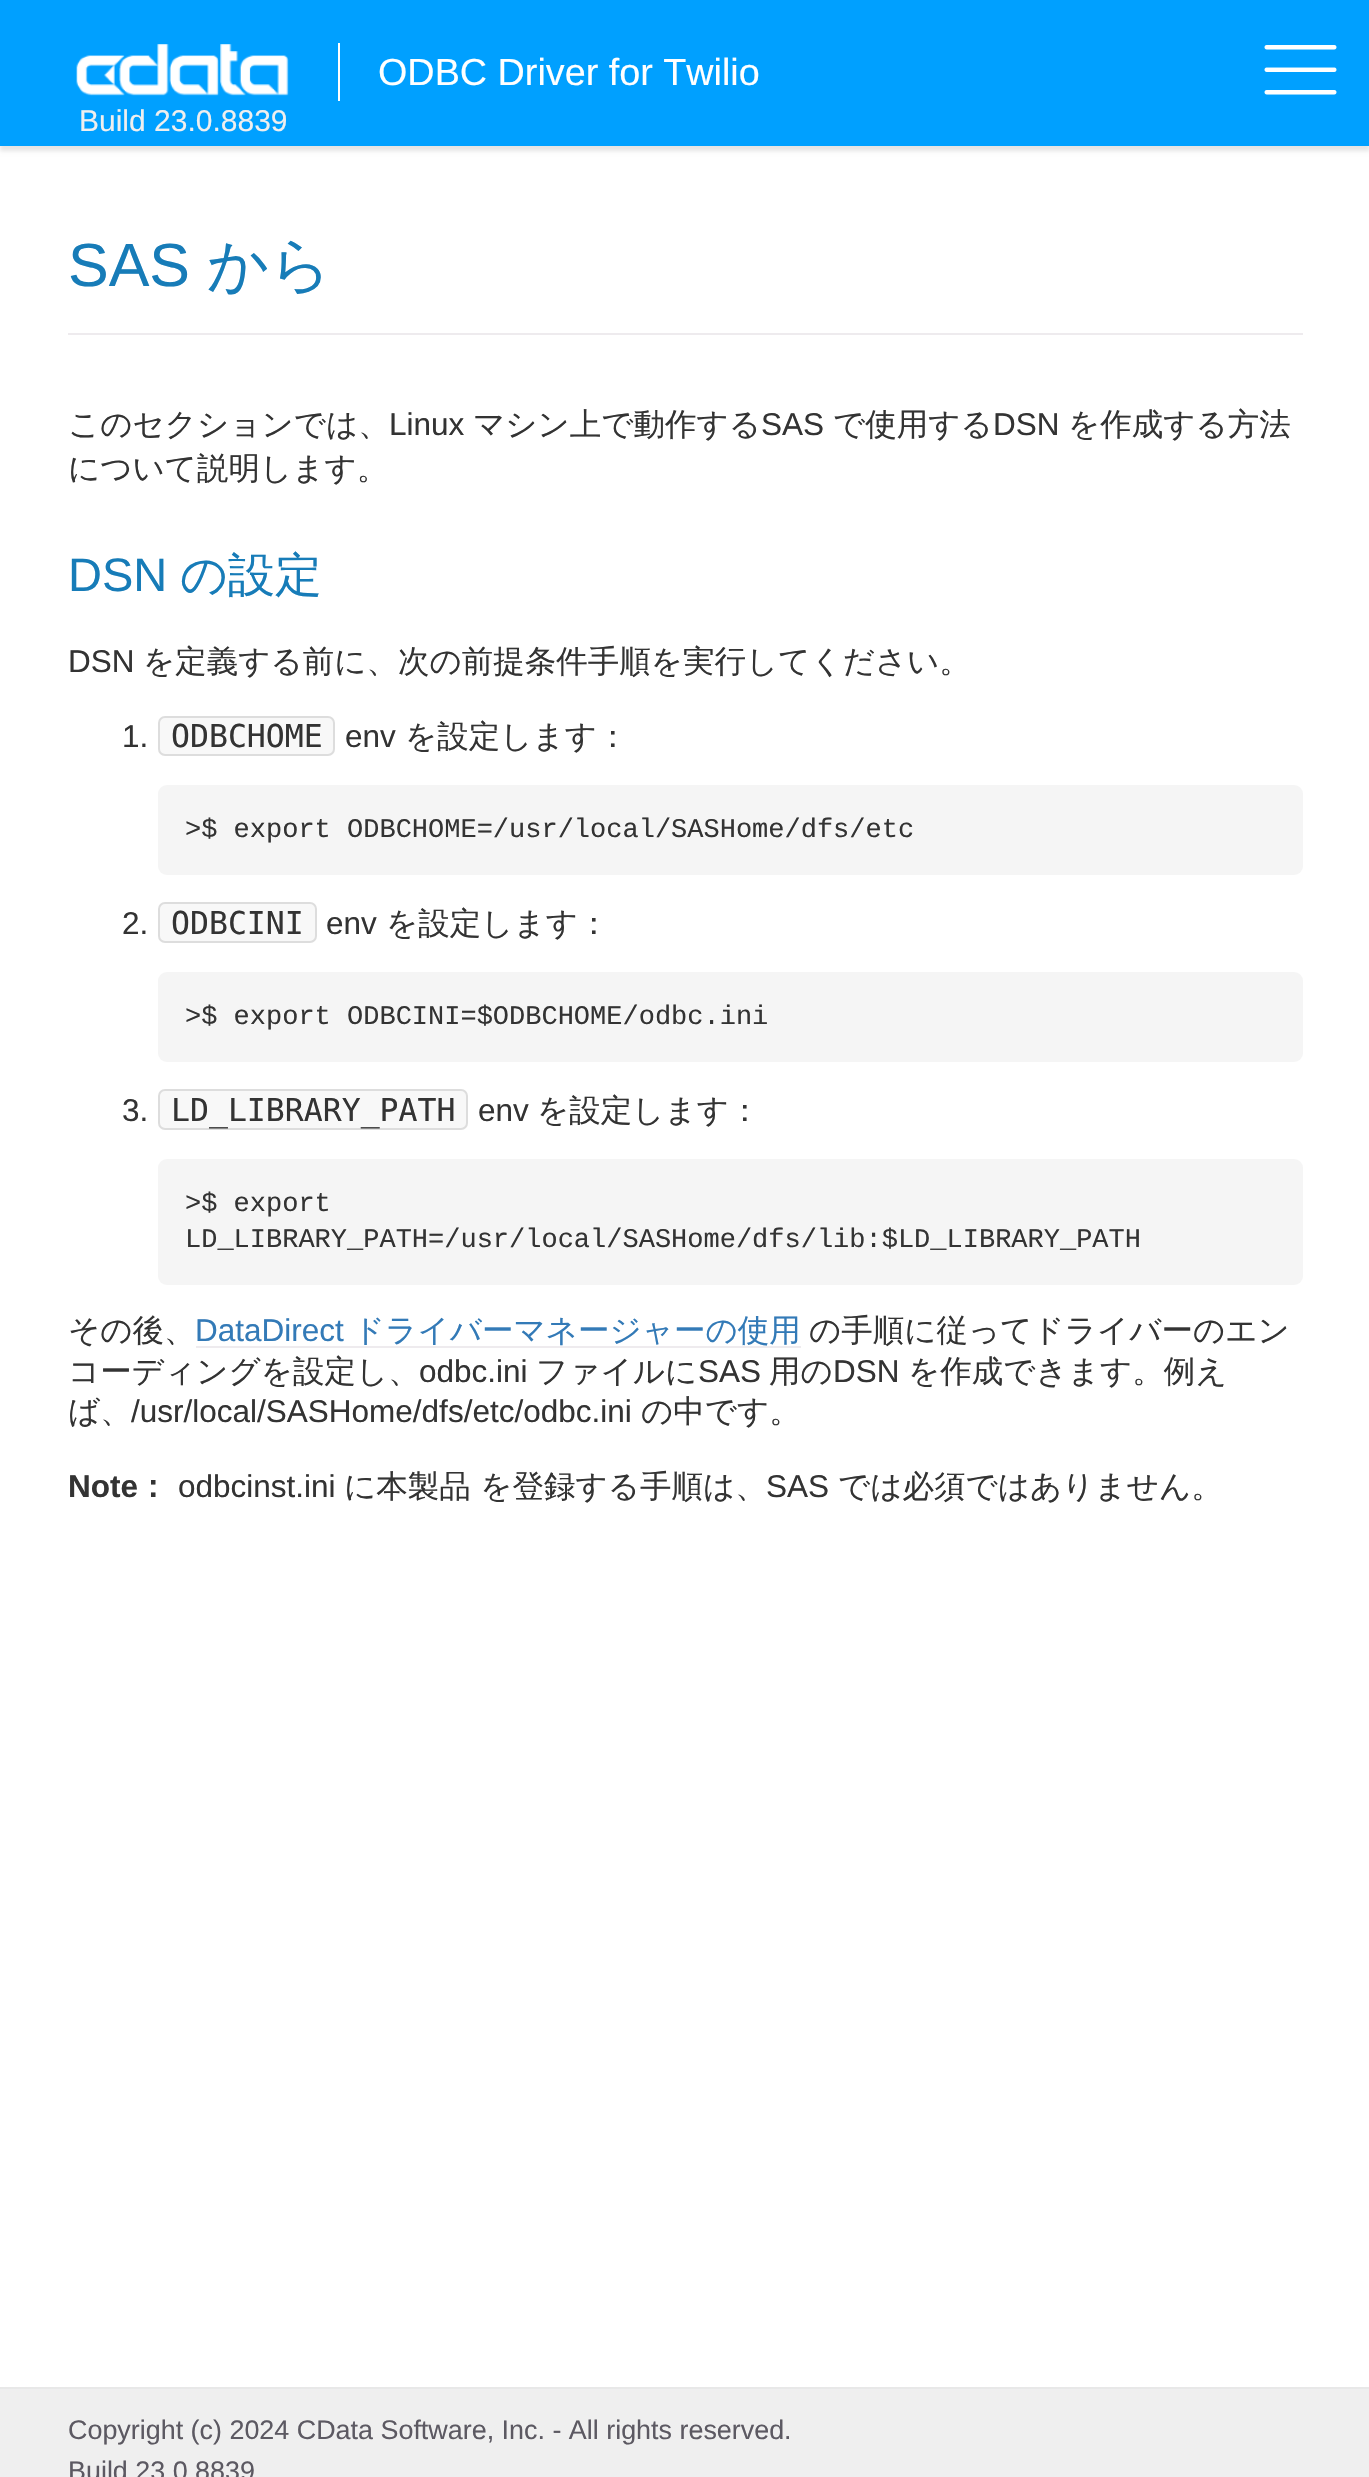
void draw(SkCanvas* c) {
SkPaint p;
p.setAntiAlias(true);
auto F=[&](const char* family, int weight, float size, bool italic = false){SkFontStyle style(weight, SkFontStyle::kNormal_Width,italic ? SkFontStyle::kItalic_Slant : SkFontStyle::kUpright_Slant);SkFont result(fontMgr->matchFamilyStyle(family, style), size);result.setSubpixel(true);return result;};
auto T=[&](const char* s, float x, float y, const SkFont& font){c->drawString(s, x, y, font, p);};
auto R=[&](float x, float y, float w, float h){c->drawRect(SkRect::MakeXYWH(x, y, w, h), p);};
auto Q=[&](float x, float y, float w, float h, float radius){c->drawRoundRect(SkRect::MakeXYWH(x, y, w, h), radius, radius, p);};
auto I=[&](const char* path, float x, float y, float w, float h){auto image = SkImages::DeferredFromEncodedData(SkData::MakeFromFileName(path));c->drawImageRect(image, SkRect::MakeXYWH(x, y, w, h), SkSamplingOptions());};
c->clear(0xffffffff);
p.setColor(0x1a000000);
p.setMaskFilter(SkMaskFilter::MakeBlur(kNormal_SkBlurStyle, 2));
c->drawRect(SkRect::MakeXYWH(0,5,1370,146),p);
p.setMaskFilter(nullptr);
p.setColor(0xff00a0ff);
R(0,0,1369,146);
I("1.png",76,44,213,52);
I("2.png",1264,45,73,50);
p.setColor(0xffffffff);
R(338,43,2,58);
auto f1 = F("Liberation Sans",400,37.75);
T("ODBC Driver for Twilio",378,85,f1);
auto f2 = F("Liberation Sans",400,30);
p.setColor(0xffefefef);
T("Build 23.0.8839",79,131,f2);
p.setColor(0xffeeebee);
R(68,333,1235,2);
auto f3 = F("Liberation Sans",400,61);
p.setColor(0xff177cb8);
T("SAS",68,286,f3);
auto f4 = F("WenQuanYi Zen Hei",500,61);
T("から",207,286,f4);
auto f5 = F("WenQuanYi Zen Hei",500,31.5);
p.setColor(0xff333333);
T("このセクションでは、",68,435,f5);
auto f6 = F("Liberation Sans",400,31.5);
T("Linux",389,435,f6);
T("マシン上で動作する",473,435,f5);
T("SAS",761,435,f6);
T("で使用する",833,435,f5);
T("DSN",993,435,f6);
T("を作成する方法",1068,435,f5);
T("について説明します。",68,479,f5);
auto f7 = F("Liberation Sans",400,47);
p.setColor(0xff177cb8);
T("DSN",68,591,f7);
auto f8 = F("WenQuanYi Zen Hei",500,47);
T("の設定",180,591,f8);
p.setColor(0xff333333);
T("DSN",68,672,f6);
T("を定義する前に、次の前提条件手順を実行してください。",143,672,f5);
T("1.",122,747,f6);
p.setColor(0xfff8f8f8);
c->drawRoundRect(SkRect::MakeXYWH(159,717,175,38),6,6,p);
p.setStroke(true);
p.setStrokeWidth(2);
p.setColor(0xffdddddd);
c->drawRoundRect(SkRect::MakeXYWH(159,717,175,38),6,6,p);
auto f9 = F("DejaVu Sans Mono",400,31.5);
p.setStroke(false);
p.setColor(0xff333333);
T("ODBCHOME",171,747,f9);
T("env",345,747,f6);
T("を設定します：",405,747,f5);
p.setColor(0xfff5f5f5);
Q(158,785,1145,90,9);
auto f10 = F("Liberation Mono",400,27);
p.setColor(0xff333333);
T(">$ export ODBCHOME=/usr/local/SASHome/dfs/etc",185,837,f10);
T("2.",122,934,f6);
p.setColor(0xfff8f8f8);
c->drawRoundRect(SkRect::MakeXYWH(159,903,157,39),6,6,p);
p.setStroke(true);
p.setColor(0xffdddddd);
c->drawRoundRect(SkRect::MakeXYWH(159,903,157,39),6,6,p);
p.setStroke(false);
p.setColor(0xff333333);
T("ODBCINI",171,934,f9);
T("env",326,934,f6);
T("を設定します：",386,934,f5);
p.setColor(0xfff5f5f5);
Q(158,972,1145,90,9);
p.setColor(0xff333333);
T(">$ export ODBCINI=$ODBCHOME/odbc.ini",185,1024,f10);
T("3.",122,1121,f6);
p.setColor(0xfff8f8f8);
c->drawRoundRect(SkRect::MakeXYWH(159,1090,308,39),6,6,p);
p.setStroke(true);
p.setColor(0xffdddddd);
c->drawRoundRect(SkRect::MakeXYWH(159,1090,308,39),6,6,p);
p.setStroke(false);
p.setColor(0xff333333);
T("LD_LIBRARY_PATH",171,1121,f9);
T("env",478,1121,f6);
T("を設定します：",537,1121,f5);
p.setColor(0xfff5f5f5);
Q(158,1159,1145,126,9);
p.setColor(0xff333333);
T(">$ export",185,1211,f10);
T("LD_LIBRARY_PATH=/usr/local/SASHome/dfs/lib:$LD_LIBRARY_PATH",185,1247,f10);
T("その後、",68,1341,f5);
p.setColor(0xff337ab7);
T("DataDirect",195,1341,f6);
T("ドライバーマネージャーの使用",353,1341,f5);
p.setColor(0xffeeebee);
R(196,1346,605,2);
p.setColor(0xff333333);
T("の手順に従ってドライバーのエン",809,1341,f5);
T("コーディングを設定し、",68,1382,f5);
T("odbc.ini",419,1382,f6);
T("ファイルに",536,1382,f5);
T("SAS",698,1382,f6);
T("用の",769,1382,f5);
T("DSN",833,1382,f6);
T("を作成できます。例え",908,1382,f5);
T("ば、",68,1422,f5);
T("/usr/local/SASHome/dfs/etc/odbc.ini",131,1422,f6);
T("の中です。",641,1422,f5);
auto f11 = F("Liberation Sans",700,31.5);
T("Note",68,1497,f11);
auto f12 = F("WenQuanYi Zen Hei",700,31.5);
T("：",137,1497,f12);
T("odbcinst.ini",178,1497,f6);
T("に本製品 を登録する手順は、",344,1497,f5);
T("SAS",766,1497,f6);
T("では必須ではありません。",838,1497,f5);
p.setColor(0xffefefef);
R(0,2389,1369,88);
p.setColor(0xffe8e8e8);
R(0,2387,1369,2);
auto f13 = F("Liberation Sans",400,26.9);
p.setColor(0xff5c5962);
T("Copyright (c) 2024 CData Software, Inc. - All rights reserved.",68,2439,f13);
T("Build 23.0.8839",68,2480,f13);
}
